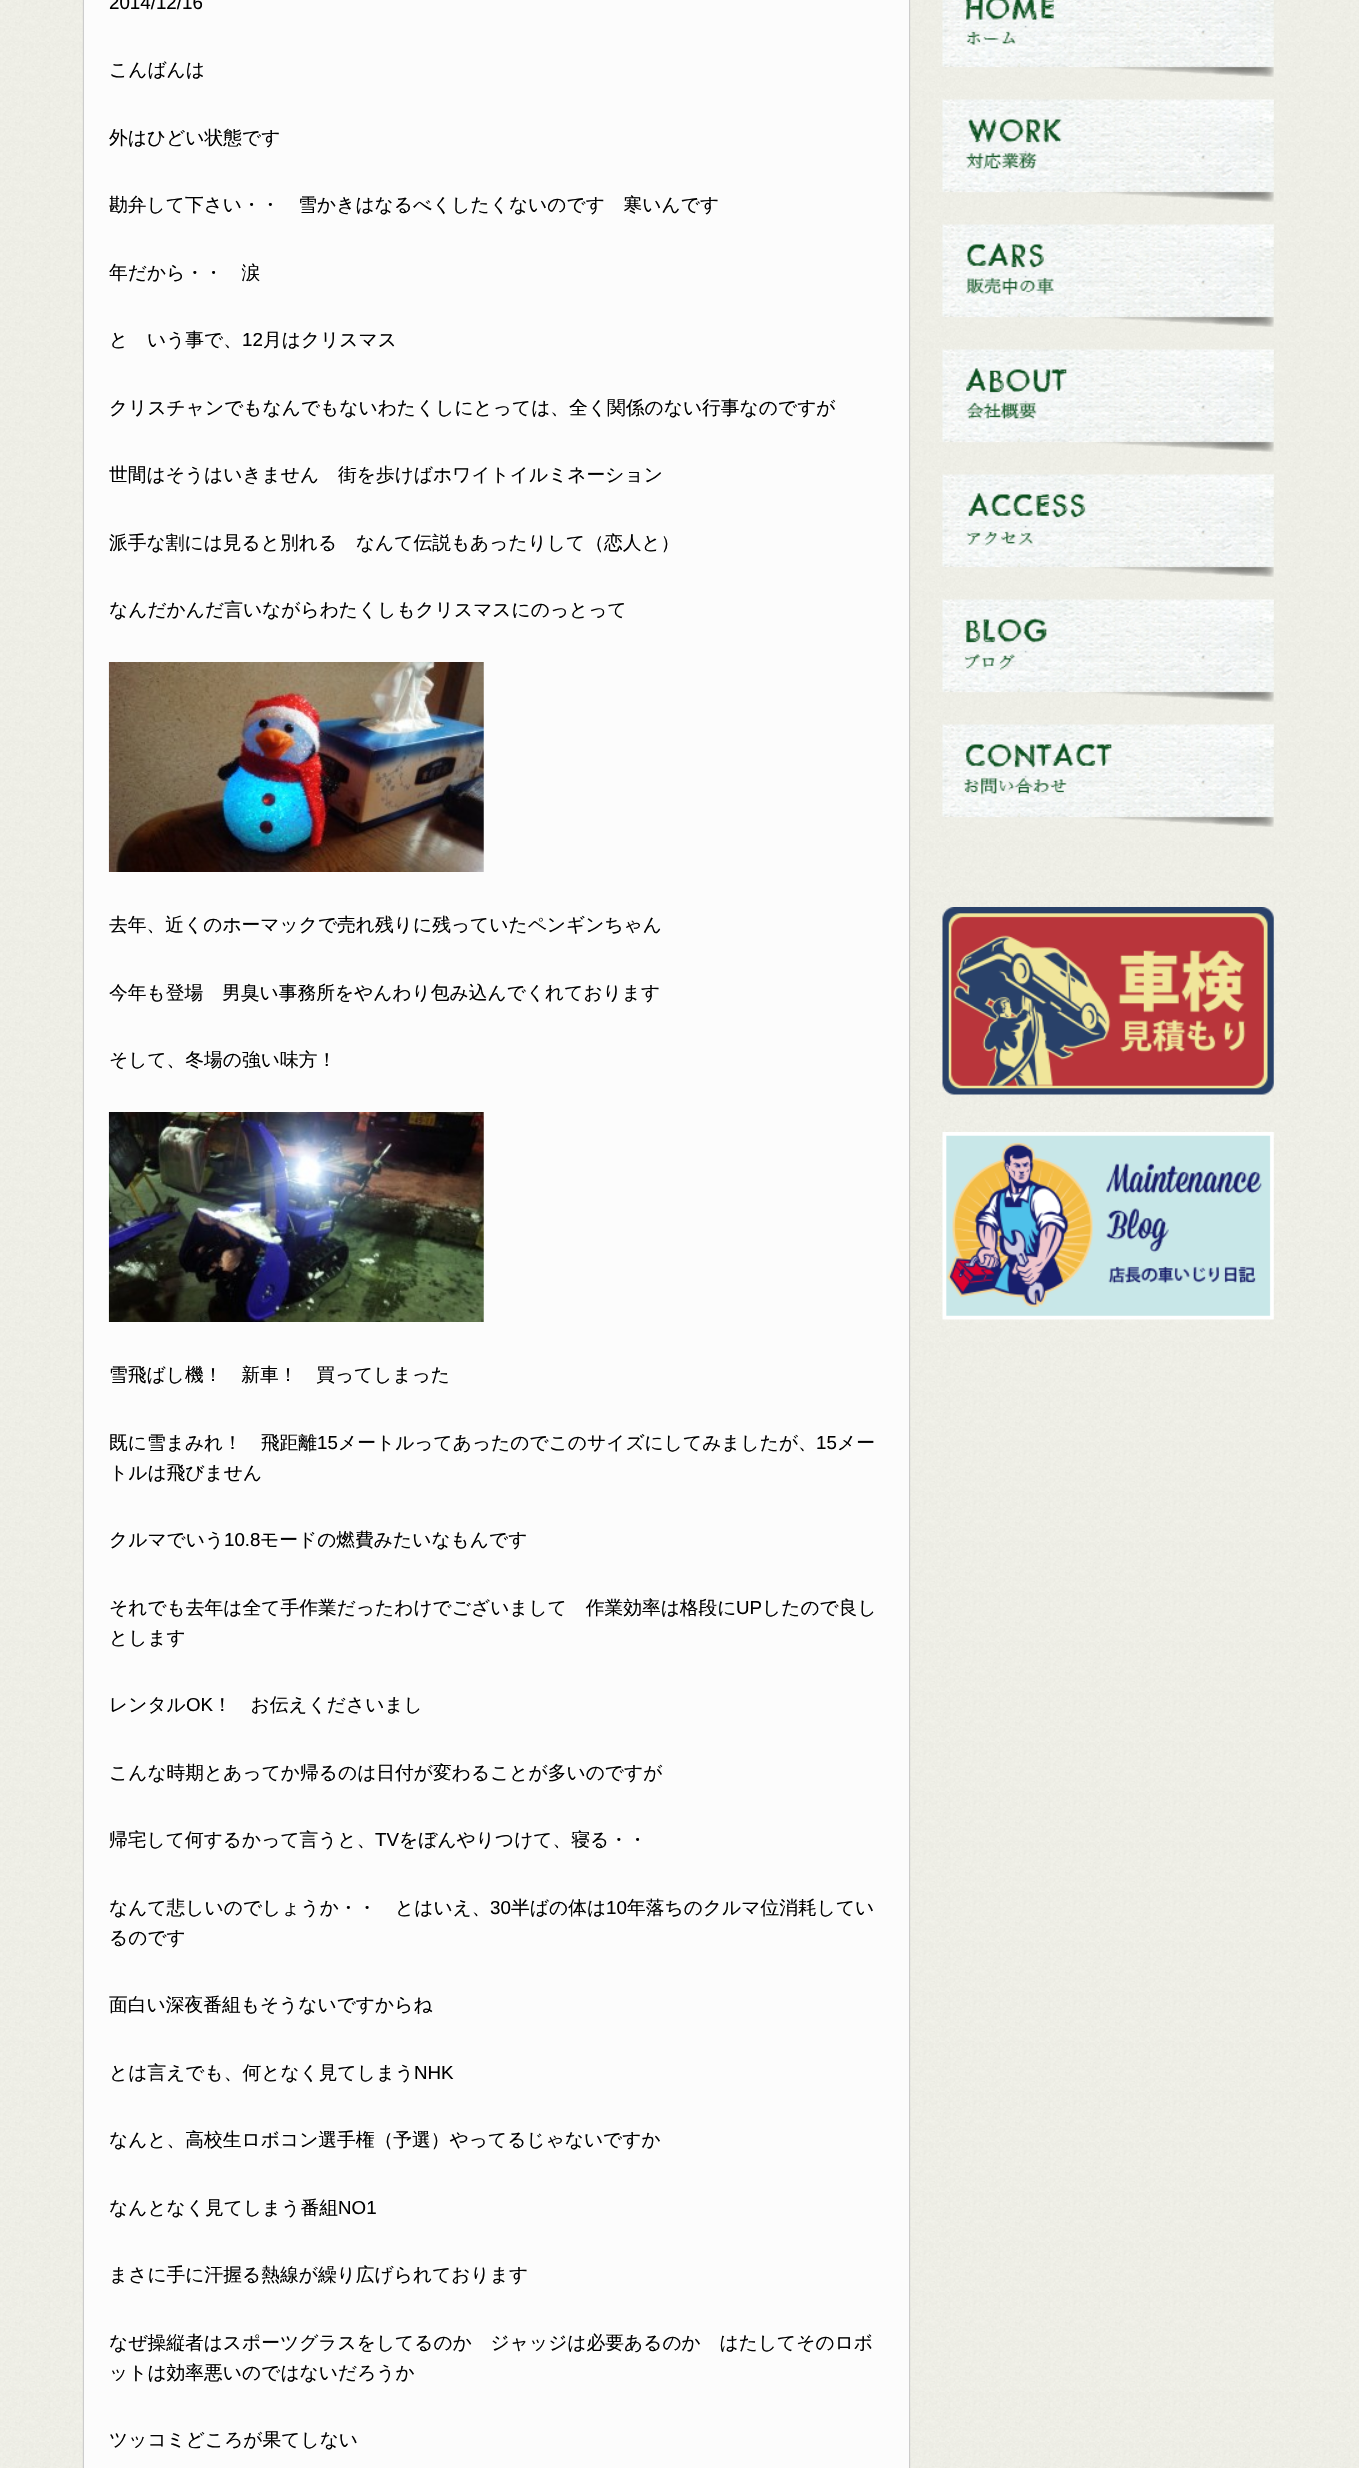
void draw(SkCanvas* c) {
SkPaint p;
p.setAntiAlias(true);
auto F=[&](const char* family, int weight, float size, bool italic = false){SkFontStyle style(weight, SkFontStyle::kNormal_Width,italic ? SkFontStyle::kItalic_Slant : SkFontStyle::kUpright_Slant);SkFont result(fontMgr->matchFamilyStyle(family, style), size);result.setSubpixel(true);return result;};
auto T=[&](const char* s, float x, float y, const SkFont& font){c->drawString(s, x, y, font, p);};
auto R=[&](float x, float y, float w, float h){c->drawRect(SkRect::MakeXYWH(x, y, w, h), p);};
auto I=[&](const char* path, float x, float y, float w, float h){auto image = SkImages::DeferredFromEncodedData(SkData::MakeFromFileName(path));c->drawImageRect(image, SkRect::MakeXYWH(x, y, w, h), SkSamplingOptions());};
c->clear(0xffffffff);
I("1.png",0,0,1359,2468);
p.setColor(0xffcccccc);
p.setMaskFilter(SkMaskFilter::MakeBlur(kNormal_SkBlurStyle, .5));
c->drawRect(SkRect::MakeXYWH(83,-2,827,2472),p);
p.setMaskFilter(nullptr);
p.setColor(0xfffcfcfc);
R(84,0,825,2468);
auto f1 = F("Liberation Sans",400,18.75);
p.setColor(0xff000000);
T("2014/12/16",109,9,f1);
auto f2 = F("WenQuanYi Zen Hei",500,18.75);
T("こんばんは",109,76,f2);
T("外はひどい状態です",109,144,f2);
T("勘弁して下さい・・　雪かきはなるべくしたくないのです　寒いんです",109,211,f2);
T("年だから・・　涙",109,279,f2);
T("と　いう事で、",109,346,f2);
T("12",242,346,f1);
T("月はクリスマス",263,346,f2);
T("クリスチャンでもなんでもないわたくしにとっては、全く関係のない行事なのですが",109,414,f2);
T("世間はそうはいきません　街を歩けばホワイトイルミネーション",109,481,f2);
T("派手な割には見ると別れる　なんて伝説もあったりして（恋人と）",109,549,f2);
T("なんだかんだ言いながらわたくしもクリスマスにのっとって",109,616,f2);
I("2.png",108,662,376,210);
T("去年、近くのホーマックで売れ残りに残っていたペンギンちゃん",109,931,f2);
T("今年も登場　男臭い事務所をやんわり包み込んでくれております",109,999,f2);
T("そして、冬場の強い味方！",109,1066,f2);
I("3.png",108,1112,376,210);
T("雪飛ばし機！　新車！　買ってしまった",109,1381,f2);
T("既に雪まみれ！　飛距離",109,1449,f2);
T("15",317,1449,f1);
T("メートルってあったのでこのサイズにしてみましたが、",338,1449,f2);
T("15",816,1449,f1);
T("メー",837,1449,f2);
T("トルは飛びません",109,1479,f2);
T("クルマでいう",109,1546,f2);
T("10.8",224,1546,f1);
T("モードの燃費みたいなもんです",260,1546,f2);
T("それでも去年は全て手作業だったわけでございまして　作業効率は格段に",109,1614,f2);
T("UP",736,1614,f1);
T("したので良し",762,1614,f2);
T("とします",109,1644,f2);
T("レンタル",109,1711,f2);
T("OK",186,1711,f1);
T("！　お伝えくださいまし",213,1711,f2);
T("こんな時期とあってか帰るのは日付が変わることが多いのですが",109,1779,f2);
T("帰宅して何するかって言うと、",109,1846,f2);
T("TV",375,1846,f1);
T("をぼんやりつけて、寝る・・",399,1846,f2);
T("なんて悲しいのでしょうか・・　とはいえ、",109,1914,f2);
T("30",490,1914,f1);
T("半ばの体は",511,1914,f2);
T("10",606,1914,f1);
T("年落ちのクルマ位消耗してい",627,1914,f2);
T("るのです",109,1944,f2);
T("面白い深夜番組もそうないですからね",109,2011,f2);
T("とは言えでも、何となく見てしまう",109,2079,f2);
T("NHK",414,2079,f1);
T("なんと、高校生ロボコン選手権（予選）やってるじゃないですか",109,2146,f2);
T("なんとなく見てしまう番組",109,2214,f2);
T("NO1",338,2214,f1);
T("まさに手に汗握る熱線が繰り広げられております",109,2281,f2);
T("なぜ操縦者はスポーツグラスをしてるのか　ジャッジは必要あるのか　はたしてそのロボ",109,2349,f2);
T("ットは効率悪いのではないだろうか",109,2379,f2);
T("ツッコミどころが果てしない",109,2446,f2);
I("4.png",942,0,332,77);
I("5.png",942,99,332,103);
I("6.png",942,224,332,103);
I("7.png",942,349,332,103);
I("8.png",942,474,332,103);
I("9.png",942,599,332,103);
I("10.png",942,724,332,103);
I("11.png",942,907,332,188);
I("12.png",942,1132,332,188);
}
